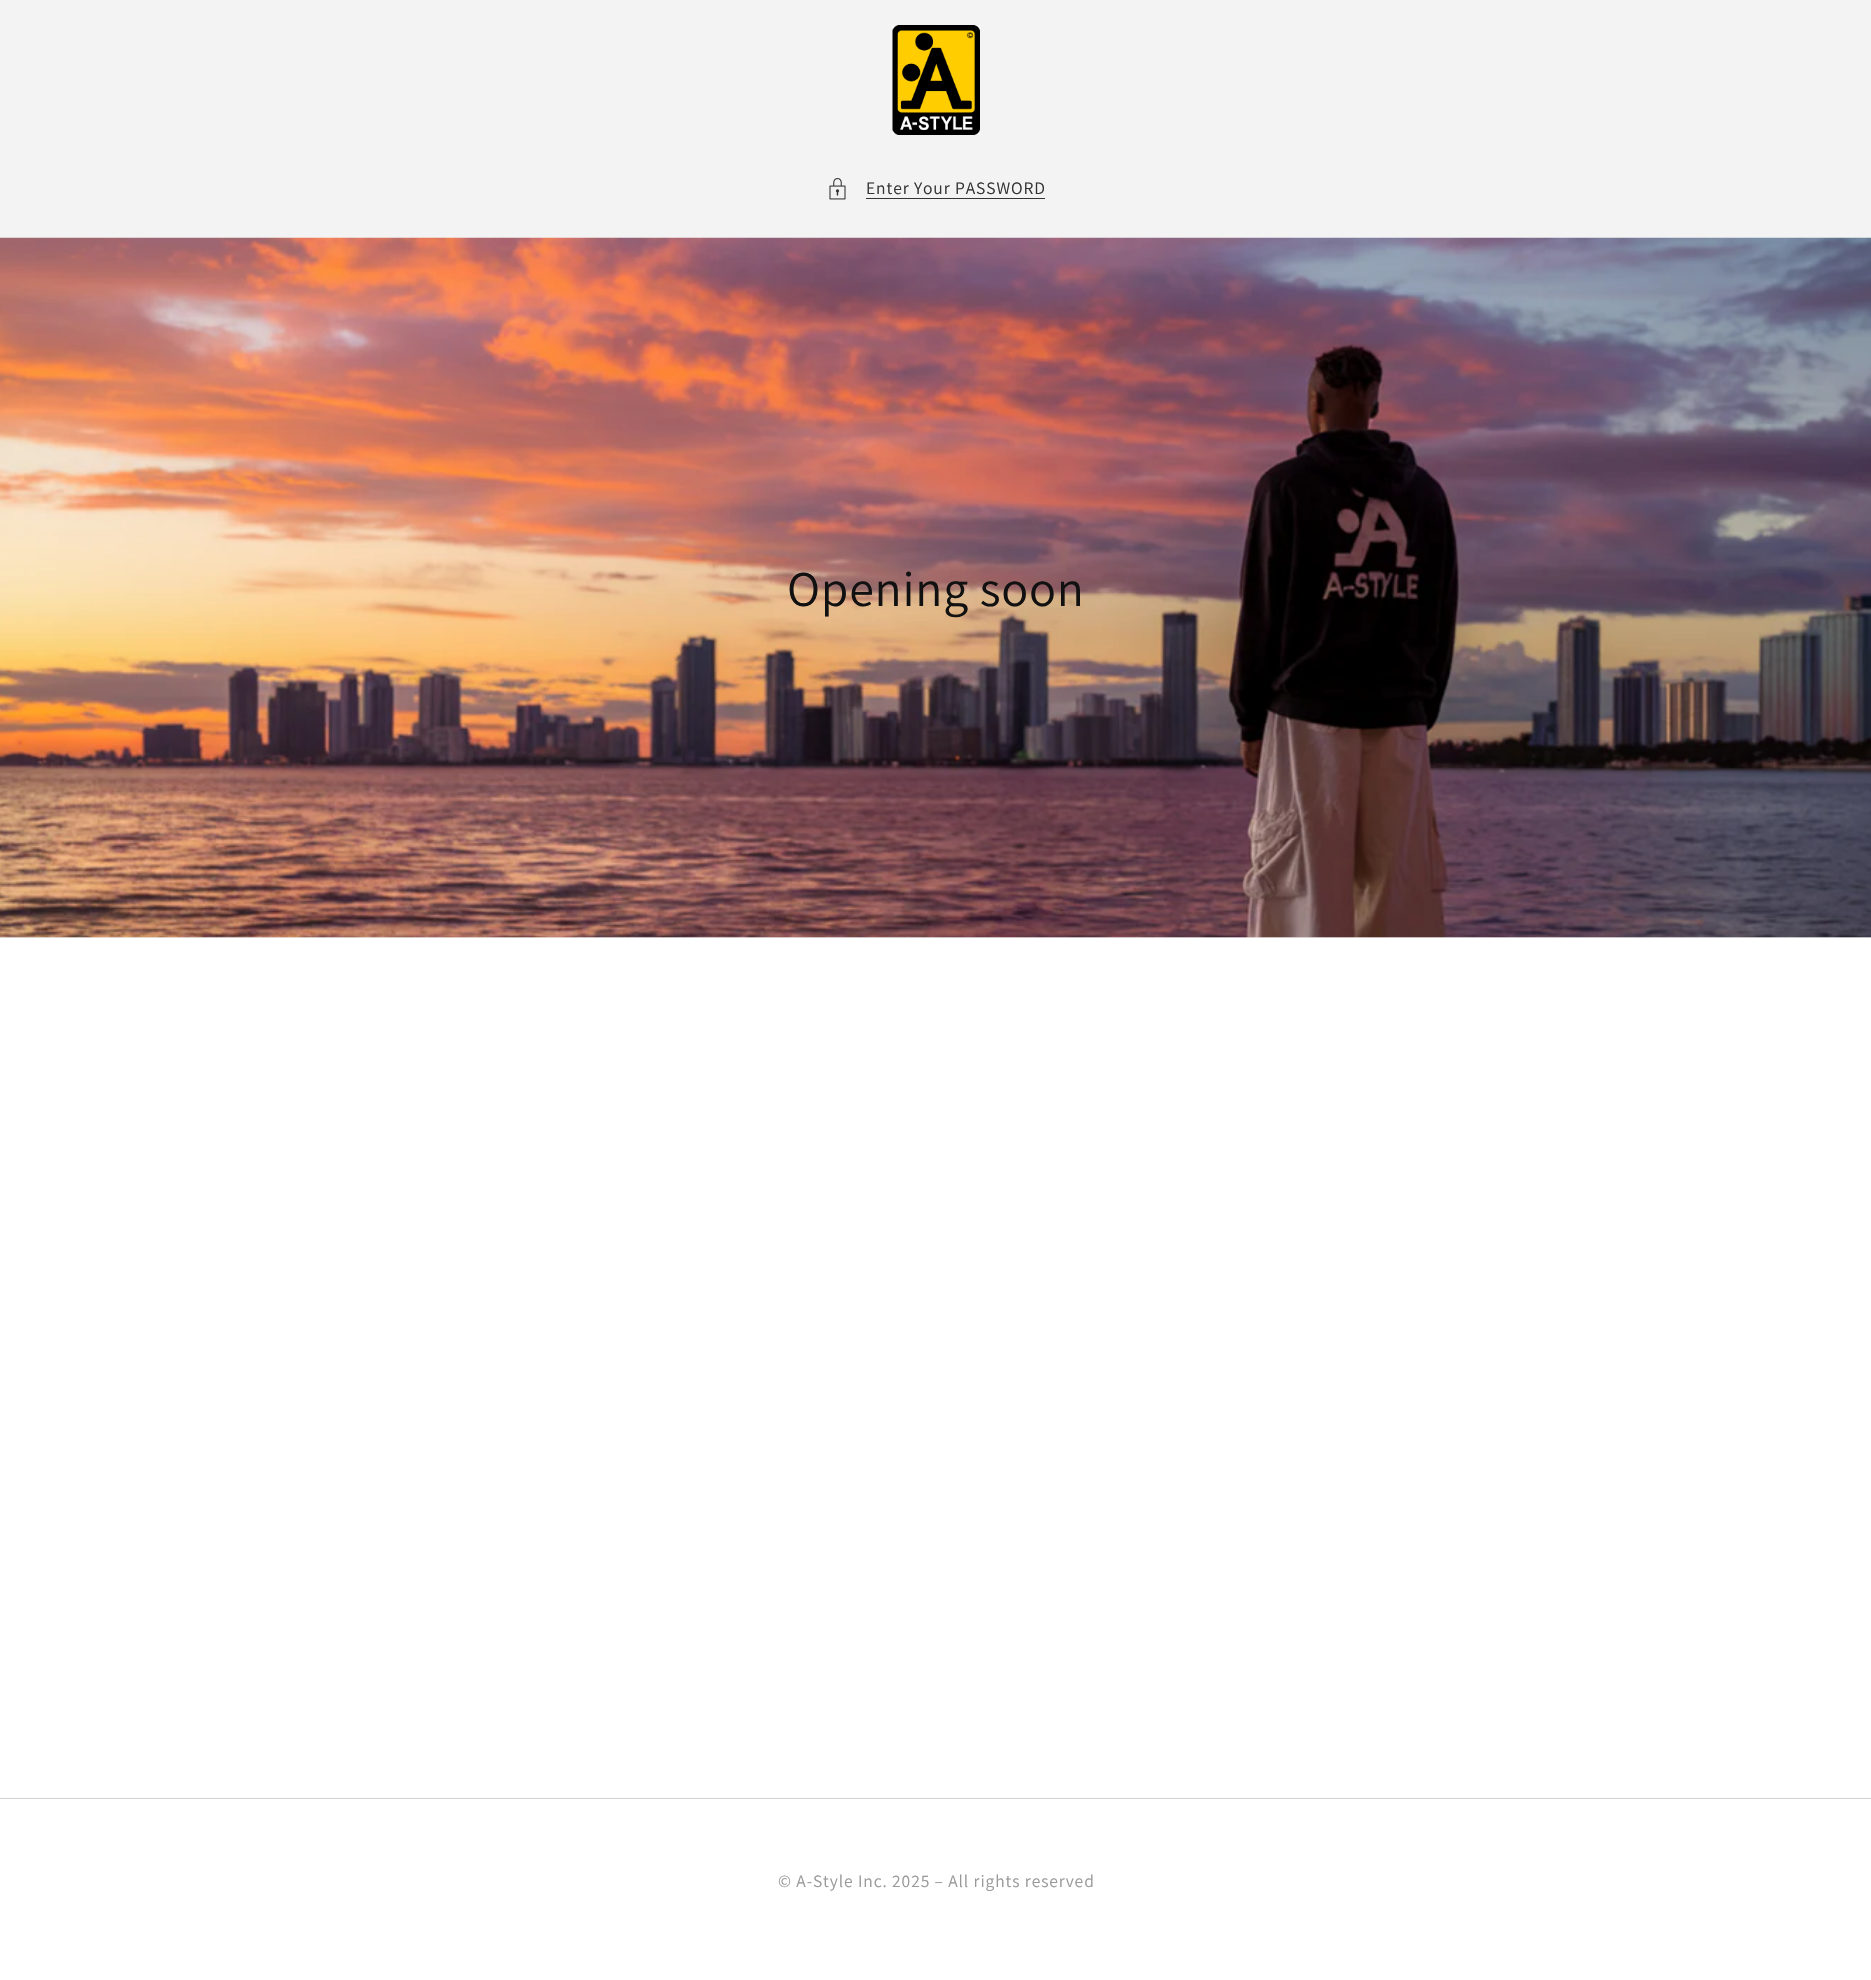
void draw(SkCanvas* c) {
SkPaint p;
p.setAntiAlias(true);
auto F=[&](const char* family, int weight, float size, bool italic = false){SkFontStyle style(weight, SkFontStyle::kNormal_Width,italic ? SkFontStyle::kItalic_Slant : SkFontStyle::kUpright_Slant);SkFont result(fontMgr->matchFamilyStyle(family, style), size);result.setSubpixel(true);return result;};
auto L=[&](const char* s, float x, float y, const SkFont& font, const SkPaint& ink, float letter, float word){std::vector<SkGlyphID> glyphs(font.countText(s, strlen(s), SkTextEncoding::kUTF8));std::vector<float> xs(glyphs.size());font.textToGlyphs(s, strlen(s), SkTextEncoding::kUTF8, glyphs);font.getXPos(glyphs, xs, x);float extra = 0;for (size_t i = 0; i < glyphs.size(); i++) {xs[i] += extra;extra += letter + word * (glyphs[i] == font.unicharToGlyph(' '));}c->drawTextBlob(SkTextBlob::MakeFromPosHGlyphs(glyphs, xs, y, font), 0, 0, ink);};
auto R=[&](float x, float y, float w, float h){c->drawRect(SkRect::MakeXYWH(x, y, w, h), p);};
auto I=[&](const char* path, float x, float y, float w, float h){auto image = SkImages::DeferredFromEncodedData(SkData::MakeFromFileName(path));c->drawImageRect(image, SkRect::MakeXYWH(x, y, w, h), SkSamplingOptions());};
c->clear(0xffffffff);
p.setColor(0xfff3f3f3);
R(0,0,1871,238);
I("1.png",892,25,88,110);
I("2.png",829,178,17,22);
auto f1 = F("Assistant",400,17.5);
p.setColor(0xff343434);
L("Enter Your PASSWORD",866,194,f1,p,.9,0);
R(866,198,179,1);
p.setColor(0xffe8e8e8);
R(0,937,1871,1);
I("3.png",0,237,1871,701);
auto f2 = F("Assistant",400,50);
p.setColor(0xff111111);
L("Opening soon",787,606,f2,p,.75,0);
p.setColor(0xffd0d0d0);
R(0,1798,1871,1);
p.setColor(0xff999999);
L("© A-Style Inc. 2025 – All rights reserved",778,1887,f1,p,.9,0);
}
